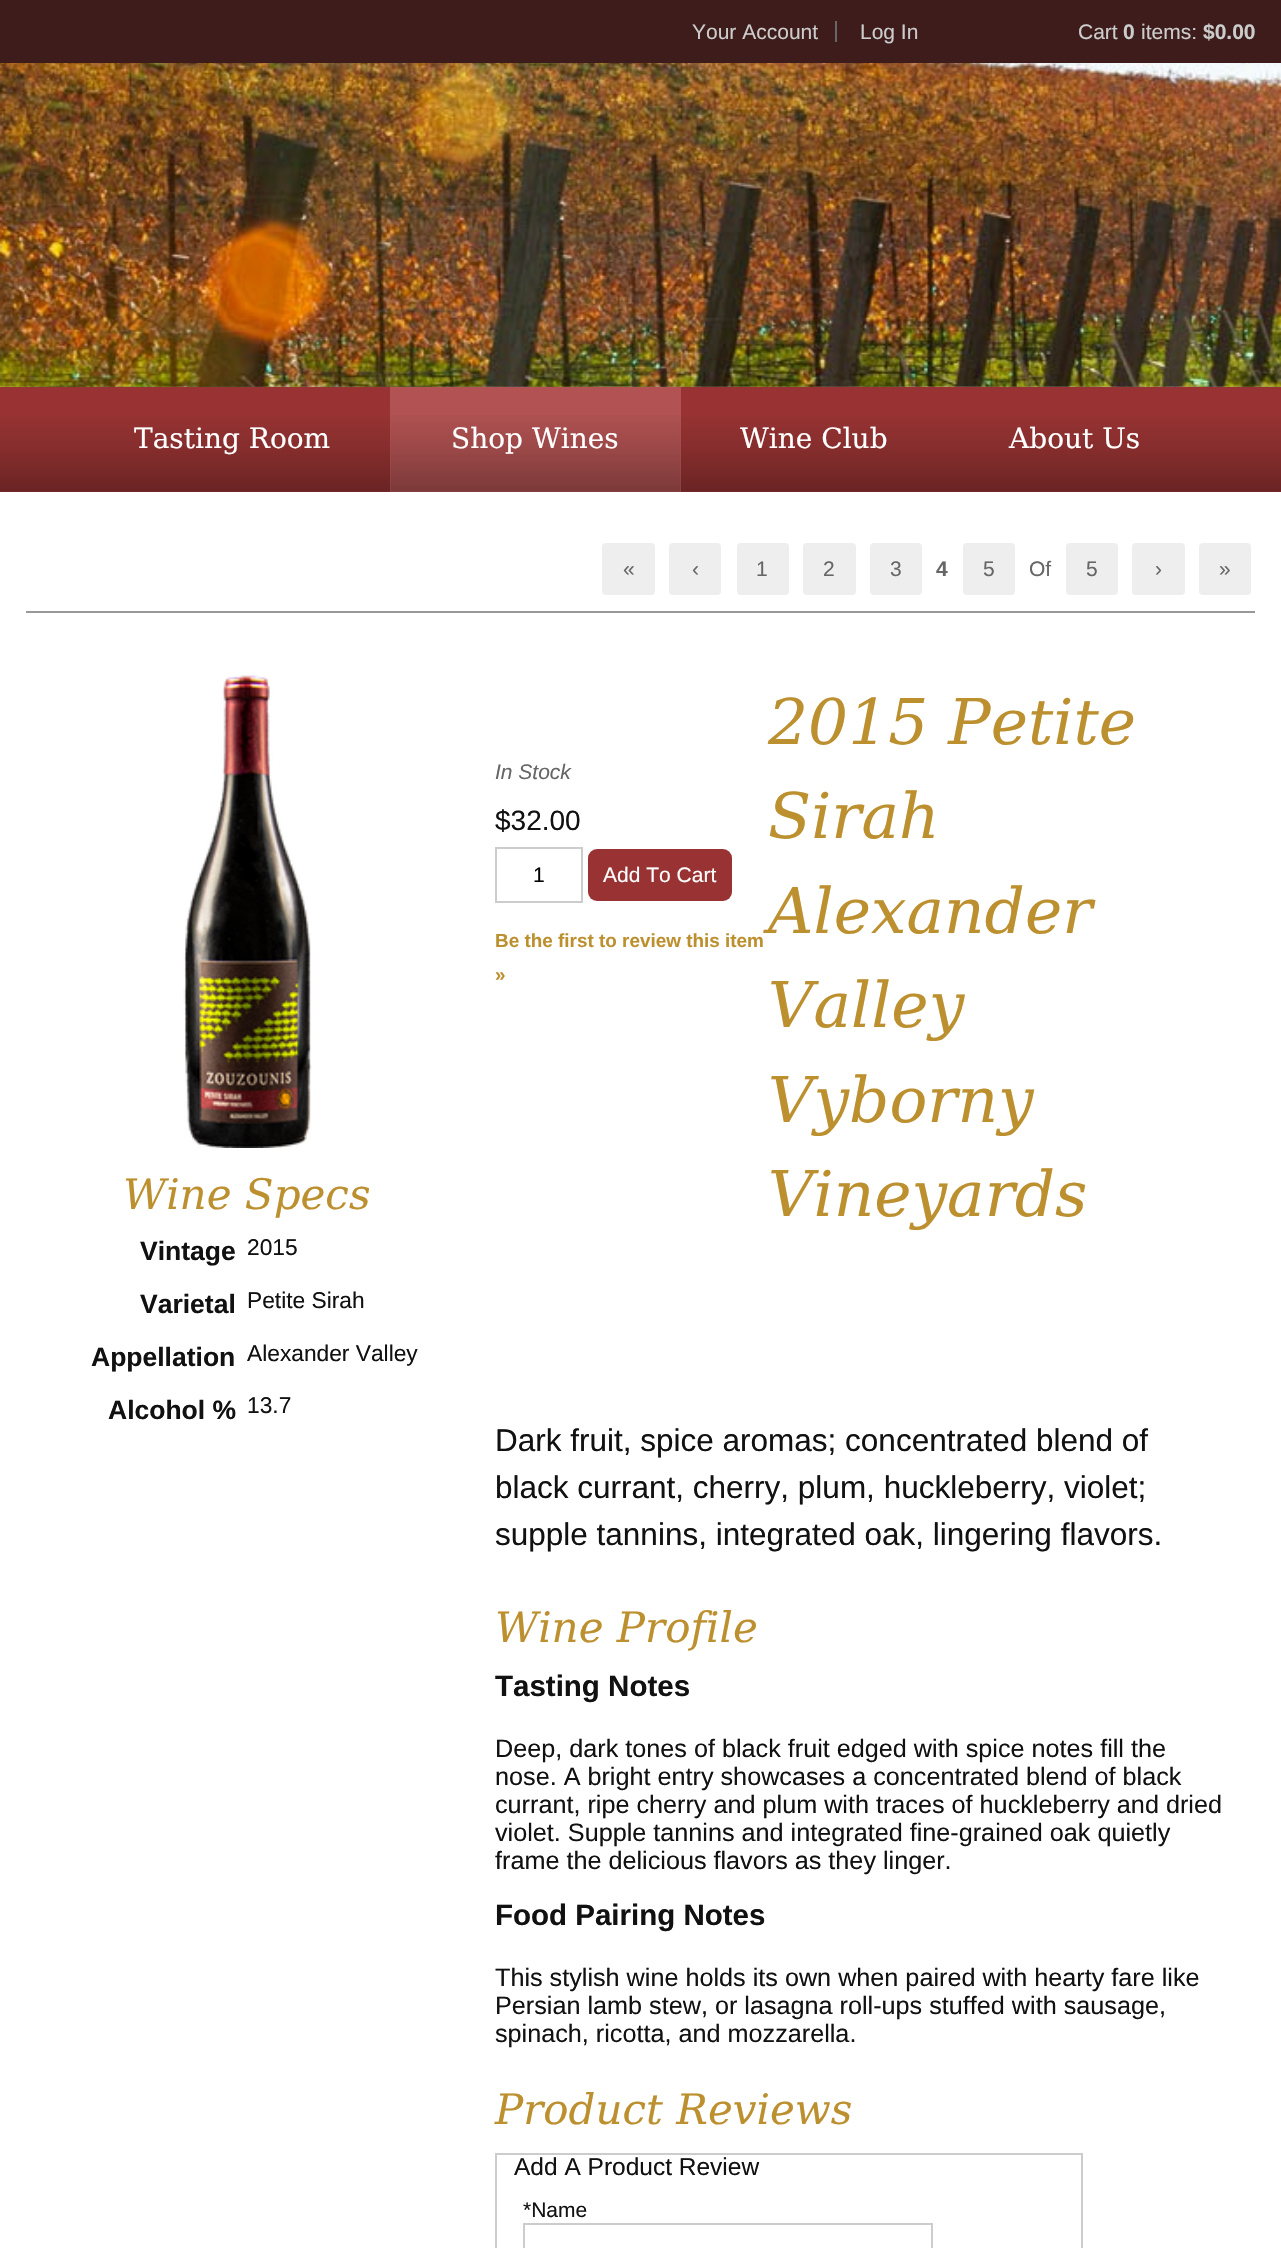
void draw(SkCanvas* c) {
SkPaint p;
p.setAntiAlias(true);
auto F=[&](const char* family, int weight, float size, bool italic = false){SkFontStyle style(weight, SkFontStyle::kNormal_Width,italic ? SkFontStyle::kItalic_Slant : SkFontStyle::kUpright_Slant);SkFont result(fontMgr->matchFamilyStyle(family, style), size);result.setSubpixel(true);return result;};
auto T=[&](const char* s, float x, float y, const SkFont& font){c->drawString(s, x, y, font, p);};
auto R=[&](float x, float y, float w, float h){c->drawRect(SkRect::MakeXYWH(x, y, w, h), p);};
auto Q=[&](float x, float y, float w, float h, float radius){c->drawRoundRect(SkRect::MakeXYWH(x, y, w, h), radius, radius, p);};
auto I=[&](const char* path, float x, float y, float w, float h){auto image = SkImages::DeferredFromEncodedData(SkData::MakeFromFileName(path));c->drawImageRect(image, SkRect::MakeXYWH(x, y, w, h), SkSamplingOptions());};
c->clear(0xffffffff);
p.setColor(0xff3e1c1c);
R(0,0,1281,63);
p.setColor(0xff666666);
R(835,21,2,21);
auto f1 = F("Liberation Sans",400,21);
p.setColor(0xffcccccc);
T("Your Account",692,39,f1);
T("Log In",860,39,f1);
T("Cart",1078,39,f1);
auto f2 = F("Liberation Sans",700,21);
T("0",1123,39,f2);
T("items:",1141,39,f1);
T("$0.00",1203,39,f2);
I("2.png",0,386,1281,1);
I("1.png",0,63,1281,324);
p.setColor(0xff993333);
R(0,387,1281,105);
I("3.png",0,416,1281,76);
auto f3 = F("DejaVu Serif",400,28);
p.setColor(0xffffffff);
T("Tasting Room",134,448,f3);
p.setColor(0xffb25252);
R(390,387,291,105);
I("4.png",390,415,291,77);
p.setColor(0xffffffff);
T("Shop Wines",451,448,f3);
T("Wine Club",740,448,f3);
T("About Us",1009,448,f3);
p.setColor(0xff999999);
R(26,611,1229,2);
p.setColor(0xffeeeeee);
Q(602,543,53,52,4);
p.setColor(0xff666666);
T("«",623,576,f1);
p.setColor(0xffeeeeee);
Q(669,543,52,52,4);
p.setColor(0xff666666);
T("‹",692,576,f1);
p.setColor(0xffeeeeee);
Q(737,543,52,52,4);
p.setColor(0xff666666);
T("1",756,576,f1);
p.setColor(0xffeeeeee);
Q(803,543,53,52,4);
p.setColor(0xff666666);
T("2",823,576,f1);
p.setColor(0xffeeeeee);
Q(870,543,52,52,4);
p.setColor(0xff666666);
T("3",890,576,f1);
T("4",936,576,f2);
p.setColor(0xffeeeeee);
Q(963,543,52,52,4);
p.setColor(0xff666666);
T("5",983,576,f1);
T("Of",1029,576,f1);
p.setColor(0xffeeeeee);
Q(1066,543,52,52,4);
p.setColor(0xff666666);
T("5",1086,576,f1);
p.setColor(0xffeeeeee);
Q(1132,543,53,52,4);
p.setColor(0xff666666);
T("›",1155,576,f1);
p.setColor(0xffeeeeee);
Q(1199,543,52,52,4);
p.setColor(0xff666666);
T("»",1219,576,f1);
I("5.png",183,675,129,473);
auto f4 = F("DejaVu Serif",400,42,true);
p.setColor(0xffbd902f);
T("Wine Specs",123,1209,f4);
auto f5 = F("Liberation Sans",700,26.5);
p.setColor(0xff111111);
T("Vintage",140,1260,f5);
auto f6 = F("Liberation Sans",400,22.75);
T("2015",247,1255,f6);
T("Varietal",140,1313,f5);
T("Petite Sirah",247,1308,f6);
T("Appellation",91,1366,f5);
T("Alexander Valley",247,1361,f6);
T("Alcohol %",108,1419,f5);
T("13.7",247,1413,f6);
auto f7 = F("Liberation Sans",400,21,true);
p.setColor(0xff666666);
T("In Stock",495,779,f7);
auto f8 = F("DejaVu Serif",400,63,true);
p.setColor(0xffbd902f);
T("2015 Petite",768,744,f8);
T("Sirah",768,838,f8);
T("Alexander",768,933,f8);
T("Valley",768,1027,f8);
T("Vyborny",768,1122,f8);
T("Vineyards",768,1216,f8);
auto f9 = F("Liberation Sans",400,28);
p.setColor(0xff111111);
T("$32.00",495,830,f9);
p.setStroke(true);
p.setStrokeWidth(2);
p.setColor(0xffcccccc);
c->drawRect(SkRect::MakeXYWH(496,848,86,54),p);
p.setStroke(false);
p.setColor(0xff000000);
T("1",533,882,f1);
p.setColor(0xff993333);
Q(588,849,144,52,9);
p.setColor(0xffffffff);
T("Add To Cart",603,882,f1);
auto f10 = F("Liberation Sans",700,18.9);
p.setColor(0xffbd902f);
T("Be the first to review this item",495,947,f10);
T("»",495,981,f10);
auto f11 = F("Liberation Sans",400,31.5);
p.setColor(0xff111111);
T("Dark fruit, spice aromas; concentrated blend of",495,1451,f11);
T("black currant, cherry, plum, huckleberry, violet;",495,1498,f11);
T("supple tannins, integrated oak, lingering flavors.",495,1545,f11);
p.setColor(0xffbd902f);
T("Wine Profile",495,1642,f4);
auto f12 = F("Liberation Sans",700,29.5);
p.setColor(0xff111111);
T("Tasting Notes",495,1696,f12);
auto f13 = F("Liberation Sans",400,25.2);
T("Deep, dark tones of black fruit edged with spice notes fill the",495,1757,f13);
T("nose. A bright entry showcases a concentrated blend of black",495,1785,f13);
T("currant, ripe cherry and plum with traces of huckleberry and dried",495,1813,f13);
T("violet. Supple tannins and integrated fine-grained oak quietly",495,1841,f13);
T("frame the delicious flavors as they linger.",495,1869,f13);
T("Food Pairing Notes",495,1925,f12);
T("This stylish wine holds its own when paired with hearty fare like",495,1986,f13);
T("Persian lamb stew, or lasagna roll-ups stuffed with sausage,",495,2014,f13);
T("spinach, ricotta, and mozzarella.",495,2042,f13);
p.setColor(0xffbd902f);
T("Product Reviews",495,2124,f4);
p.setStroke(true);
p.setColor(0xffcccccc);
c->drawRect(SkRect::MakeXYWH(496,2154,586,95),p);
auto f14 = F("Liberation Sans",400,24.5);
p.setStroke(false);
p.setColor(0xff111111);
T("Add A Product Review",514,2175,f14);
T("*Name",523,2217,f1);
p.setStroke(true);
p.setColor(0xffcccccc);
c->drawRect(SkRect::MakeXYWH(524,2224,408,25),p);
}
